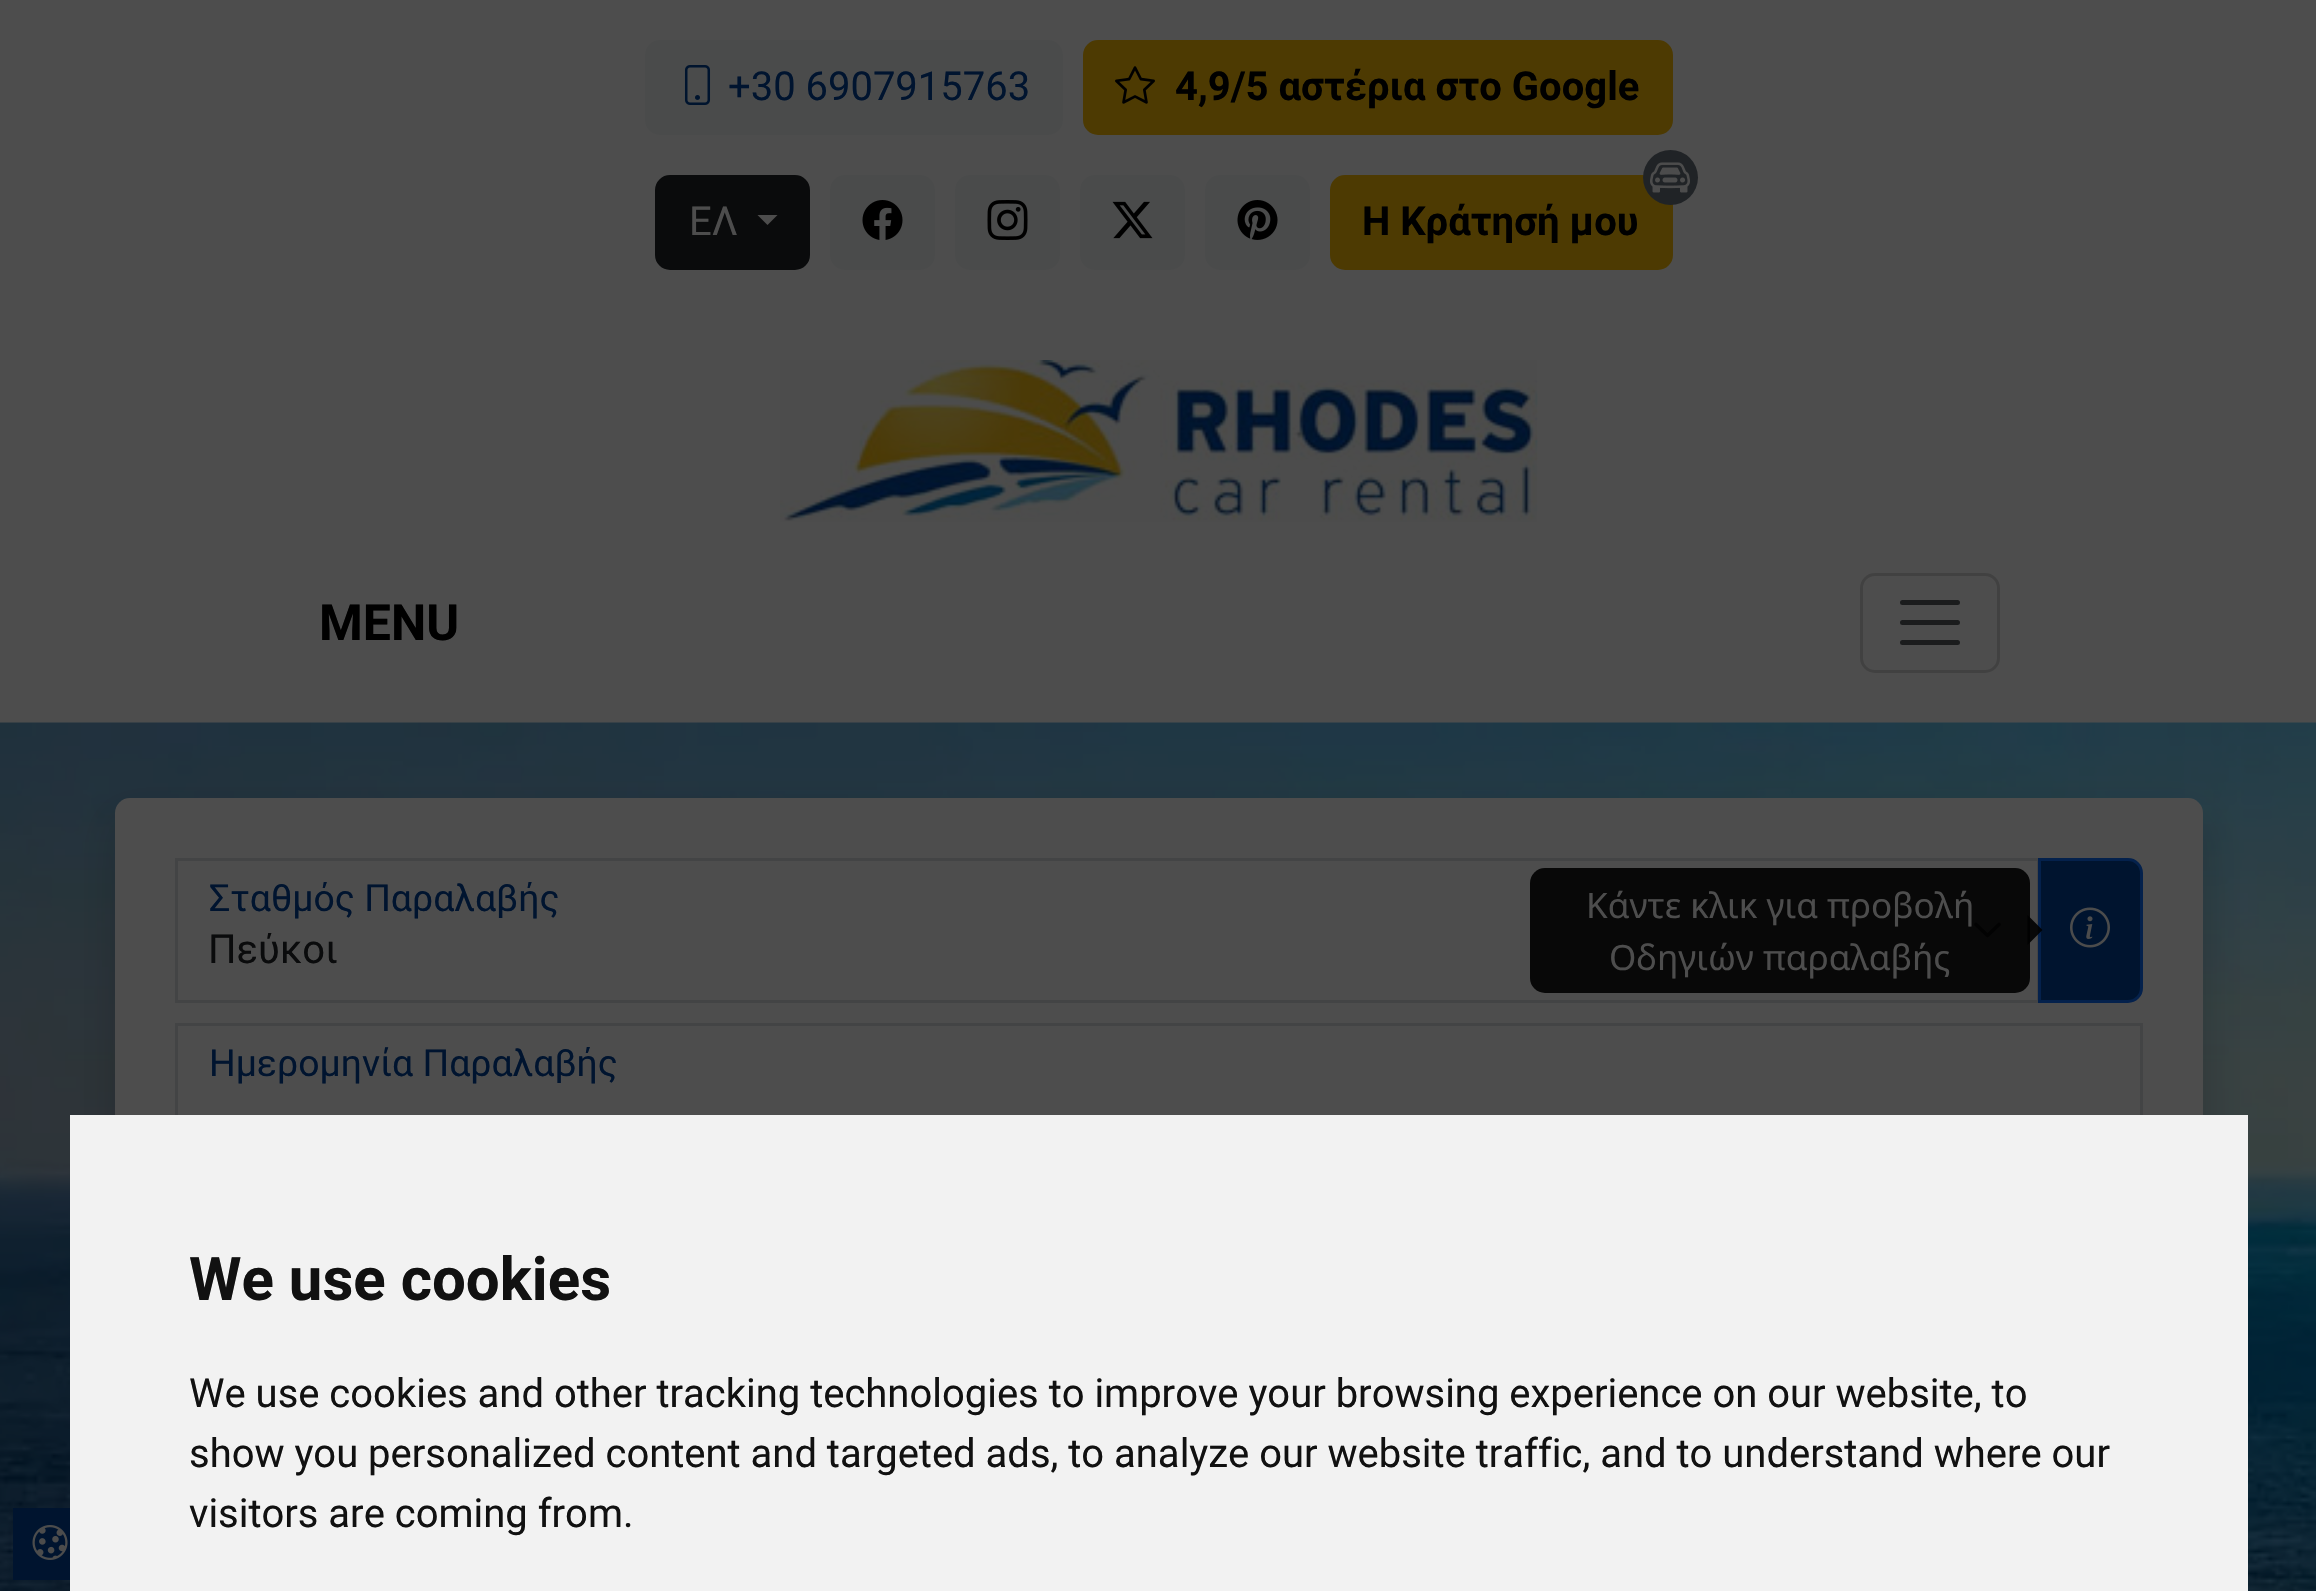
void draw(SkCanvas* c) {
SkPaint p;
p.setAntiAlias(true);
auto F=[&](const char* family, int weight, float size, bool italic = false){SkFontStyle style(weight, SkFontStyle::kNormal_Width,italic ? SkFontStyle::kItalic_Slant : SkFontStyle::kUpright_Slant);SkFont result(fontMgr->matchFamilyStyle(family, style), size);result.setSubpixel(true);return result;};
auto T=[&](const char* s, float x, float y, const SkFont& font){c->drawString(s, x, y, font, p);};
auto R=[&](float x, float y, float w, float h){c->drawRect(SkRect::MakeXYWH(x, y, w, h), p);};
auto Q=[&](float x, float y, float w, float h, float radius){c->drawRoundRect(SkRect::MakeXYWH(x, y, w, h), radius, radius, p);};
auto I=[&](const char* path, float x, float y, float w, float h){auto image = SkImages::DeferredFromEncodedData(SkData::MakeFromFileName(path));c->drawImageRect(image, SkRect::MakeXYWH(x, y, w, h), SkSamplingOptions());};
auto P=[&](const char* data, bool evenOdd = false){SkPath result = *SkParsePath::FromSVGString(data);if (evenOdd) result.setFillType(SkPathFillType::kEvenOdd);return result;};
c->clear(0xff4d4d4d);
p.setColor(0xff4a4b4b);
Q(645,40,418,95,15);
I("1.png",684,65,27,40);
auto f1 = F("Roboto",400,40);
p.setColor(0xff00142f);
T("+30 6907915763",728,100,f1);
p.setColor(0xff4d3a02);
c->drawRoundRect(SkRect::MakeXYWH(1084.5,41.5,587,92),13.5,13.5,p);
p.setStroke(true);
p.setStrokeWidth(3);
c->drawRoundRect(SkRect::MakeXYWH(1084.5,41.5,587,92),13.5,13.5,p);
I("2.png",1115,66,40,38);
auto f2 = F("Roboto",700,40);
p.setStroke(false);
p.setColor(0xff000000);
T("4,9/5 αστέρια στο Google",1175,100,f2);
p.setColor(0xff0a0b0c);
c->drawRoundRect(SkRect::MakeXYWH(656.5,176.5,152,92),13.5,13.5,p);
p.setStroke(true);
c->drawRoundRect(SkRect::MakeXYWH(656.5,176.5,152,92),13.5,13.5,p);
p.setStroke(false);
p.setColor(0xff4d4d4d);
T("ΕΛ",689,235,f1);
c->drawPath(P("M757.5 215h20l-10 10z"),p);
p.setColor(0xff4a4b4b);
Q(830,175,105,95,15);
I("3.png",862,200,41,40);
Q(955,175,105,95,15);
I("4.png",987,200,41,40);
Q(1080,175,105,95,15);
I("5.png",1112,201,41,38);
Q(1205,175,105,95,15);
I("6.png",1237,200,41,40);
p.setColor(0xff4d3a02);
c->drawRoundRect(SkRect::MakeXYWH(1331.5,176.5,340,92),13.5,13.5,p);
p.setStroke(true);
c->drawRoundRect(SkRect::MakeXYWH(1331.5,176.5,340,92),13.5,13.5,p);
p.setStroke(false);
p.setColor(0xff202326);
c->drawCircle(1670.5,177.5,27.5,p);
I("7.png",1650,162,40,31);
p.setColor(0xff000000);
T("Η Κράτησή μου",1362,235,f2);
I("8.png",780,360,758,162);
auto f3 = F("Roboto",700,50);
T("MENU",319,640,f3);
p.setStroke(true);
p.setColor(0xff414141);
c->drawRoundRect(SkRect::MakeXYWH(1861.5,574.5,137,97),13.5,13.5,p);
p.setStrokeWidth(5);
p.setStrokeCap(SkPaint::kRound_Cap);
p.setColor(0xff1b1c1d);
c->drawPath(P("M1902.5 602.5h55m-55 20h55m-55 20h55"),p);
I("9.png",0,722,2316,869);
p.setStroke(false);
p.setColor(0x26000000);
p.setMaskFilter(SkMaskFilter::MakeBlur(kNormal_SkBlurStyle, 20));
c->drawRoundRect(SkRect::MakeXYWH(115,818,2088,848),15,15,p);
p.setMaskFilter(nullptr);
p.setColor(0xff4d4d4d);
Q(115,798,2088,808,15);
p.setStroke(true);
p.setStrokeWidth(3.8);
p.setStrokeJoin(SkPaint::kRound_Join);
p.setColor(0xff101113);
c->drawPath(P("M1976 924.5l11.5 11l11.5-11"),p);
p.setStrokeWidth(3);
p.setStrokeCap(SkPaint::kButt_Cap);
p.setStrokeJoin(SkPaint::kMiter_Join);
p.setColor(0xff434445);
c->drawRect(SkRect::MakeXYWH(176.5,859.5,1862,142),p);
p.setStroke(false);
p.setColor(0xff0a0b0c);
T("Πεύκοι",208,963,f1);
p.setColor(0xff4d4d4d);
Q(195,878,378,55,13);
auto f4 = F("Roboto",400,37.4);
p.setColor(0xff00142f);
T("Σταθμός Παραλαβής",209,911,f4);
c->drawPath(P("M2039.5 859.5h88.5c7.5 0 13.5 6 13.5 13.5v115c0 7.5-6 13.5-13.5 13.5h-88.5z"),p);
p.setStroke(true);
p.setColor(0xff04214c);
c->drawPath(P("M2039.5 859.5h88.5c7.5 0 13.5 6 13.5 13.5v115c0 7.5-6 13.5-13.5 13.5h-88.5z"),p);
I("10.png",2070,907,40,41);
p.setColor(0xff434445);
c->drawRect(SkRect::MakeXYWH(176.5,1024.5,1965,142),p);
p.setStroke(false);
p.setColor(0xff00142f);
T("Ημερομηνία Παραλαβής",209,1076,f4);
p.setColor(0xe6000000);
Q(1530,868,500,125,15);
auto f5 = F("Noto Sans",400,35);
p.setColor(0xff4d4d4d);
T("Κάντε κλικ για προβολή",1586,918,f5);
T("Οδηγιών παραλαβής",1609,970,f5);
p.setColor(0xe6000000);
c->drawPath(P("M2027.5 945v-30l15 15z"),p);
p.setColor(0xfff2f2f2);
R(70,1115,2178,476);
auto f6 = F("Roboto",700,60);
p.setColor(0xff111111);
T("We use cookies",189,1300,f6);
T("We use cookies and other tracking technologies to improve your browsing experience on our website, to",189,1407,f1);
T("show you personalized content and targeted ads, to analyze our website traffic, and to understand where our",189,1467,f1);
T("visitors are coming from.",189,1527,f1);
p.setColor(0xff00142f);
R(13,1508,57,72);
I("11.png",32,1525,36,35);
}
